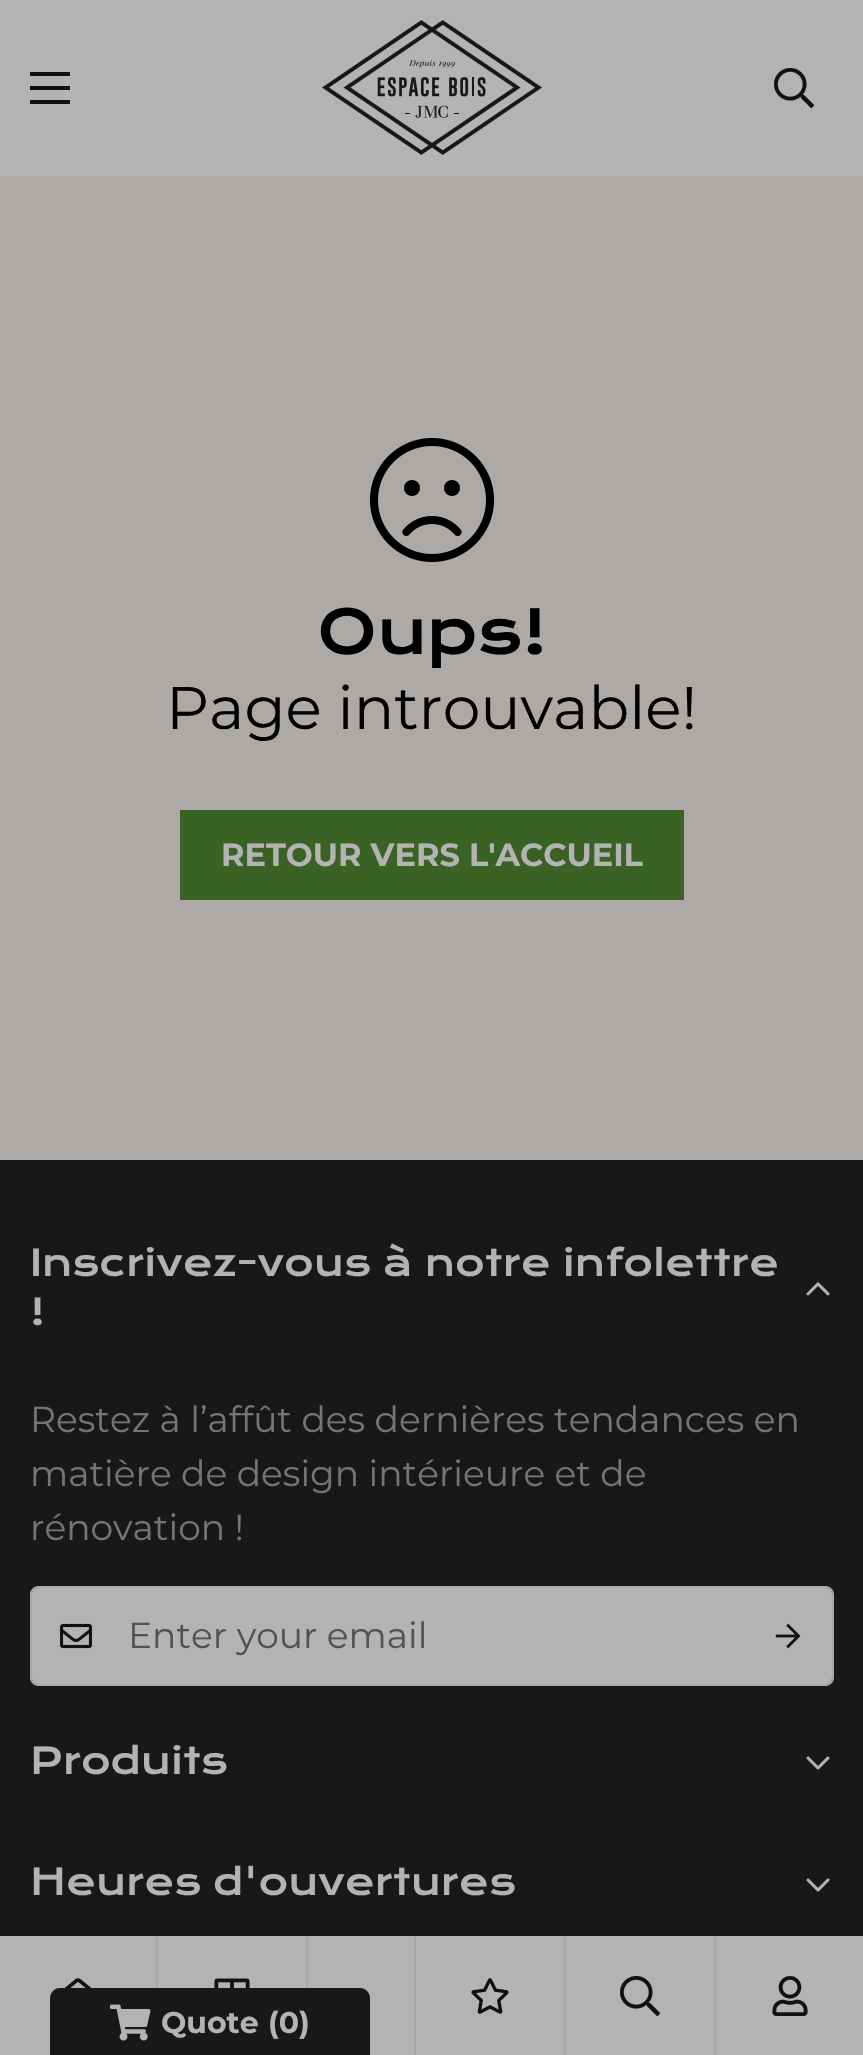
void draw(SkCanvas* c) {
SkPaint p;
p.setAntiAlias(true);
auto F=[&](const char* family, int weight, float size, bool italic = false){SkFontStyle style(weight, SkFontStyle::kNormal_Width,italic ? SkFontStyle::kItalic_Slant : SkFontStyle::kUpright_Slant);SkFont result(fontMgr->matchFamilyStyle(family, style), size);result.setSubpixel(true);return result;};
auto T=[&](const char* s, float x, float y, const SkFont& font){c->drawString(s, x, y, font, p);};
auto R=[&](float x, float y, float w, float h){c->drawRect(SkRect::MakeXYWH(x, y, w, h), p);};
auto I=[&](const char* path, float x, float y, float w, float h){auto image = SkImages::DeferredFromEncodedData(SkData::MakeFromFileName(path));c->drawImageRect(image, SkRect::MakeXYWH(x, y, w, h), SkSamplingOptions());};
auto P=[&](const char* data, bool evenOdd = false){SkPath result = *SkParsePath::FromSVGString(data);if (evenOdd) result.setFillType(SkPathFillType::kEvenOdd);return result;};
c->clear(0xffb3b3b3);
p.setColor(0xff111111);
R(30,86,40,4);
R(30,72,40,4);
R(30,100,40,4);
I("1.png",322,20,220,135);
I("2.png",774,68,40,40);
p.setColor(0xffaca9a6);
R(0,176,863,984);
I("3.png",370,438,124,124);
auto f1 = F("Krona One",400,60);
p.setColor(0xff000000);
T("Oups!",317,654,f1);
auto f2 = F("Montserrat",400,60);
T("Page introuvable!",166,729,f2);
p.setColor(0xff3a6225);
R(180,810,504,90);
auto f3 = F("Montserrat",700,32);
p.setColor(0xffb3b3b3);
T("RETOUR VERS L'ACCUEIL",221,866,f3);
p.setColor(0xff181818);
R(0,1160,863,776);
auto f4 = F("Krona One",400,36);
p.setColor(0xffb3b3b3);
T("Inscrivez-vous à notre infolettre",30,1276,f4);
I("4.png",806,1282,24,14);
T("!",30,1325,f4);
auto f5 = F("Montserrat",400,36);
p.setColor(0xff757575);
T("Restez à l’affût des dernières tendances en",30,1432,f5);
T("matière de design intérieure et de",30,1486,f5);
T("rénovation !",30,1540,f5);
p.setColor(0xffb3b3b3);
c->drawPath(P("M38 1588h706v96h-706c-3.5 0-6-2.5-6-6v-84c0-3.5 2.5-6 6-6z"),p);
p.setColor(0xffa7a7a7);
c->drawPath(P("M38 1586h706v100h-706c-4 0-8-4-8-8v-84c0-4 4-8 8-8zm0 2h706v96h-706c-3 0-6-3-6-6v-84c0-3 3-6 6-6z",true),p);
I("5.png",60,1623,32,26);
p.setColor(0xff525252);
T("Enter your email",128,1648,f5);
p.setColor(0xffb3b3b3);
c->drawPath(P("M744 1588h82c3.5 0 6 2.5 6 6v84c0 3.5-2.5 6-6 6h-82z"),p);
p.setColor(0xffa7a7a7);
c->drawPath(P("M744 1586h82c4 0 8 4 8 8v84c0 4-4 8-8 8h-82zm0 2h82c3 0 6 3 6 6v84c0 3-3 6-6 6h-82z",true),p);
I("6.png",775,1623,26,26);
p.setColor(0xffb3b3b3);
T("Produits",30,1774,f4);
I("7.png",806,1756,24,14);
T("Heures d'ouvertures",30,1895,f4);
I("7.png",806,1878,24,14);
p.setColor(0x1c000000);
p.setMaskFilter(SkMaskFilter::MakeBlur(kNormal_SkBlurStyle, 10));
c->drawRect(SkRect::MakeXYWH(0,1936,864,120),p);
p.setMaskFilter(nullptr);
p.setColor(0xffb3b3b3);
R(0,1936,863,119);
p.setColor(0xffa7a7a7);
R(156,1936,2,52);
I("8.png",64,1978,28,10);
R(306,1936,2,52);
I("9.png",214,1978,36,10);
R(414,1936,2,119);
R(564,1936,2,119);
I("10.png",471,1978,38,36);
R(714,1936,2,119);
I("2.png",620,1976,40,40);
I("11.png",772,1976,36,40);
p.setColor(0xff181818);
c->drawPath(P("M60 1988h300c5.5 0 10 4.5 10 10v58h-320v-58c0-5.5 4.5-10 10-10z"),p);
I("12.png",110,2004,41,37);
auto f6 = F("Montserrat",700,30);
p.setColor(0xffb3b3b3);
T("Quote",161,2033,f6);
T("(0)",268,2033,f6);
}
